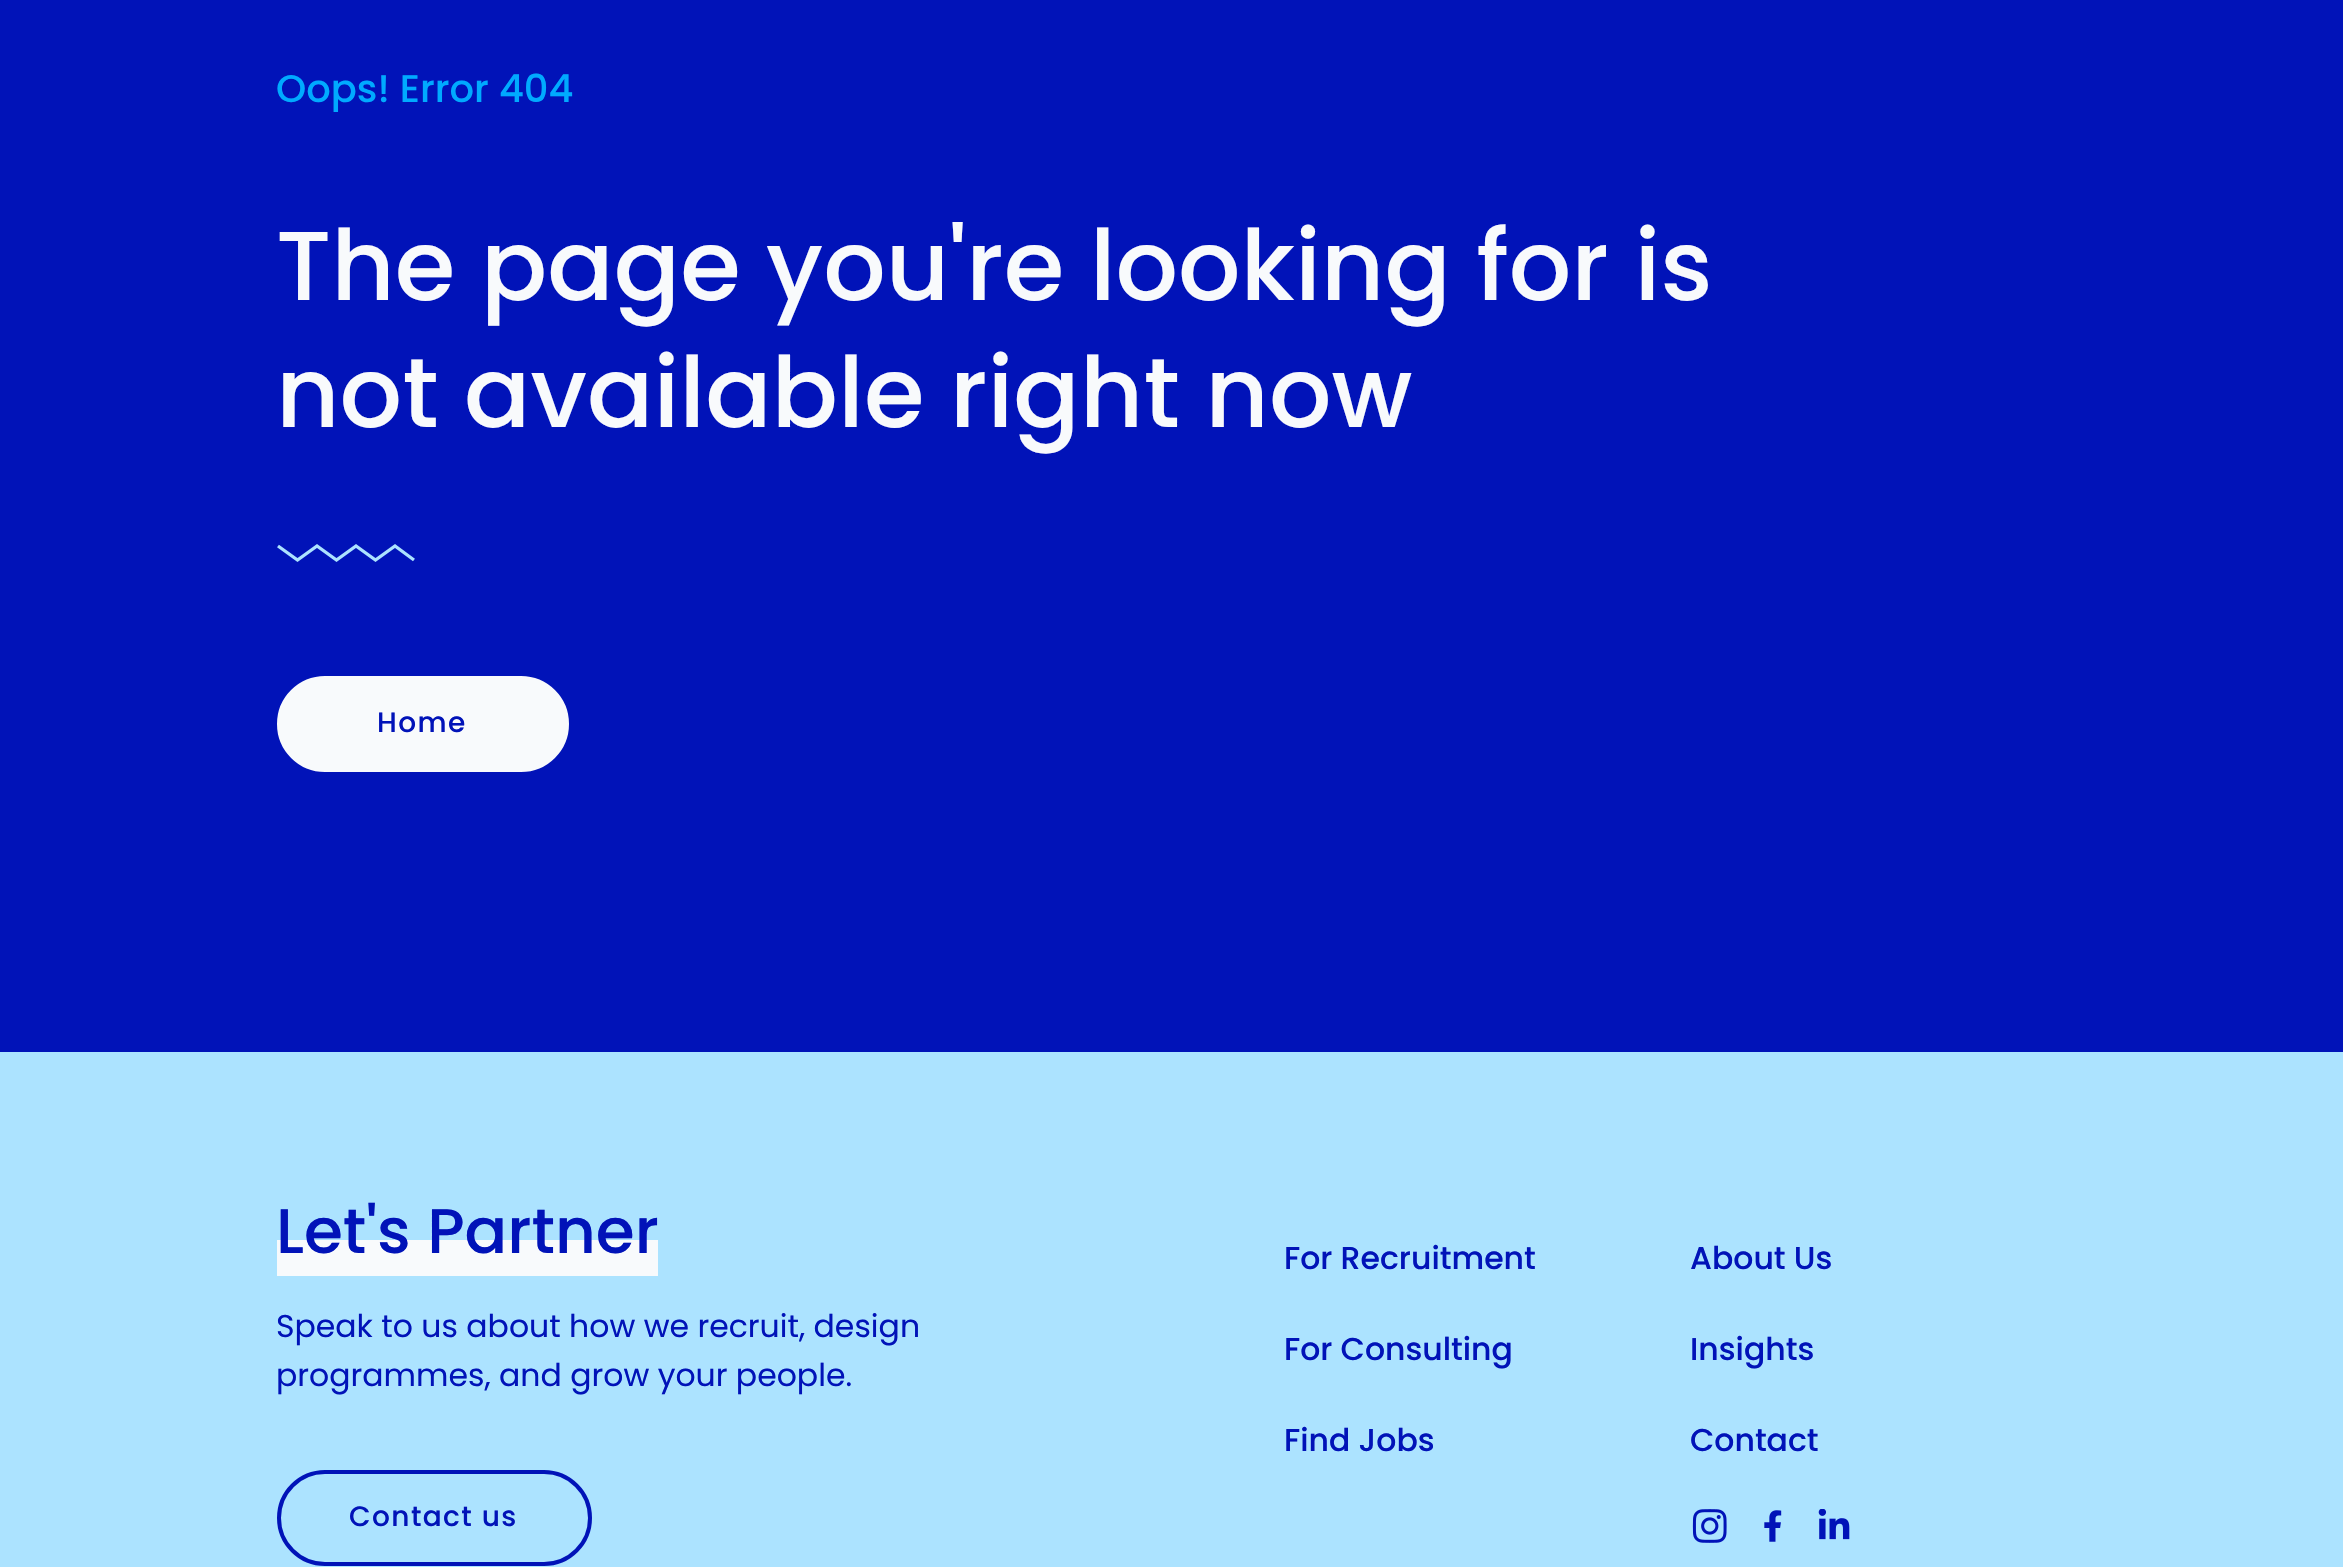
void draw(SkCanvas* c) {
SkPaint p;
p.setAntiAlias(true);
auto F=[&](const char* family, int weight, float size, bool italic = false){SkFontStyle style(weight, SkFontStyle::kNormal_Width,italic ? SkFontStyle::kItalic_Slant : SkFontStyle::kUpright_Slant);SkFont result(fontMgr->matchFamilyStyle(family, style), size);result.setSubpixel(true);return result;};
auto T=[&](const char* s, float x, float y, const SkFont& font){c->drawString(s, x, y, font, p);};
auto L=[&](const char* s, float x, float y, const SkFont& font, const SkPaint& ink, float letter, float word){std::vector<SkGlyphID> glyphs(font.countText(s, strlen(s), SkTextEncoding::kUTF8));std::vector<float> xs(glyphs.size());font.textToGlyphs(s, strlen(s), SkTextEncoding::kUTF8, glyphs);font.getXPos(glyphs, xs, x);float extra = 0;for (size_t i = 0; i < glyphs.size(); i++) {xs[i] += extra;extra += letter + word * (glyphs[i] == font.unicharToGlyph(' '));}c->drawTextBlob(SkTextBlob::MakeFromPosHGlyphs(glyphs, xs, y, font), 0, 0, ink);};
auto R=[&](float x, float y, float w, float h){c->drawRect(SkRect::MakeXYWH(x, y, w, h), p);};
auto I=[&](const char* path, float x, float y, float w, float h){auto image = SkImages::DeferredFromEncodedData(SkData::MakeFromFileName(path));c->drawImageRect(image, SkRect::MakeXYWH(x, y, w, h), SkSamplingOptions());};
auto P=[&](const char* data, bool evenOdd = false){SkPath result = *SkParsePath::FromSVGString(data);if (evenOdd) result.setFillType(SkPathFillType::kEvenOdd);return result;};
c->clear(0xff0113b8);
auto f1 = F("Poppins",500,38.5);
p.setColor(0xff00aaff);
T("Oops! Error 404",276,102,f1);
auto f2 = F("Poppins",500,98);
p.setColor(0xfff8fafc);
T("The page you're looking for is",276,300,f2);
T("not available right now",276,427,f2);
p.setStroke(true);
p.setStrokeWidth(3.3);
p.setColor(0xfface3ff);
c->drawPath(P("M414 560l-19-14l-19.5 14l-19.5-14l-19.5 14l-19.5-14l-19.5 14l-19.5-14"),p);
p.setStroke(false);
p.setColor(0xfff8fafc);
c->drawRoundRect(SkRect::MakeXYWH(279,678,288,92),46,46,p);
p.setStroke(true);
p.setStrokeWidth(4);
c->drawRoundRect(SkRect::MakeXYWH(279,678,288,92),46,46,p);
auto f3 = F("Poppins",500,28);
p.setStroke(false);
p.setColor(0xff0113b8);
L("Home",377,732,f3,p,1.4,0);
p.setColor(0xfface3ff);
R(0,1052,2343,515);
{
const SkColor colors[] = {0xfface3ff,0xfface3ff,0xfff8fafc,0xfff8fafc};
const float stops[] = {0,.6,.6,1};
const SkPoint ends[] = {{467,1187}, {467,1276}};
p.setShader(SkGradientShader::MakeLinear(ends, colors, stops, 4, SkTileMode::kClamp));
p.setAlpha(255);
}
R(277,1240,381,36);
auto f4 = F("Poppins",500,63);
p.setShader(nullptr);
p.setColor(0xff0113b8);
T("Let's Partner",276,1253,f4);
auto f5 = F("Poppins",400,31.5);
T("Speak to us about how we recruit, design",276,1337,f5);
T("programmes, and grow your people.",276,1386,f5);
p.setStroke(true);
c->drawRoundRect(SkRect::MakeXYWH(279,1472,311,92),46,46,p);
p.setStroke(false);
L("Contact us",349,1526,f3,p,1.4,0);
auto f6 = F("Poppins",500,31.5);
T("For Recruitment",1284,1269,f6);
T("For Consulting",1284,1360,f6);
T("Find Jobs",1284,1451,f6);
T("About Us",1690,1269,f6);
T("Insights",1690,1360,f6);
T("Contact",1690,1451,f6);
I("1.png",1692,1509,35,34);
I("2.png",1764,1510,18,32);
I("3.png",1818,1509,32,31);
}
